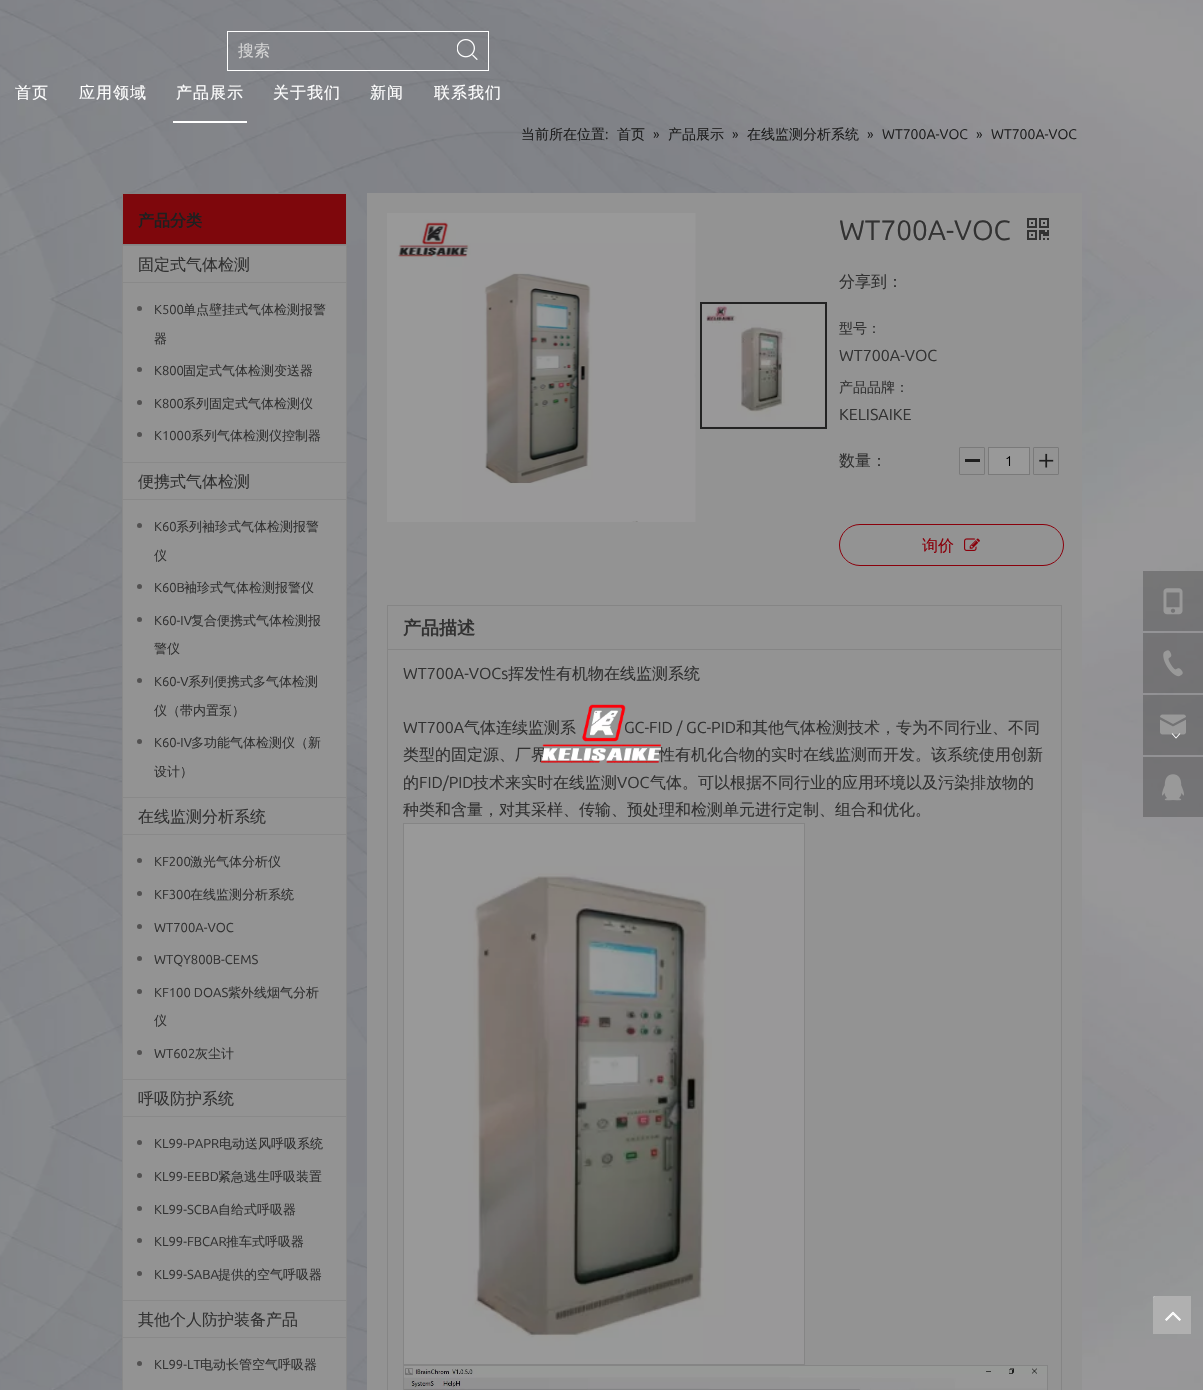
void draw(SkCanvas* c) {
SkPaint p;
p.setAntiAlias(true);
auto F=[&](const char* family, int weight, float size, bool italic = false){SkFontStyle style(weight, SkFontStyle::kNormal_Width,italic ? SkFontStyle::kItalic_Slant : SkFontStyle::kUpright_Slant);SkFont result(fontMgr->matchFamilyStyle(family, style), size);result.setSubpixel(true);return result;};
auto T=[&](const char* s, float x, float y, const SkFont& font){c->drawString(s, x, y, font, p);};
auto L=[&](const char* s, float x, float y, const SkFont& font, const SkPaint& ink, float letter, float word){std::vector<SkGlyphID> glyphs(font.countText(s, strlen(s), SkTextEncoding::kUTF8));std::vector<float> xs(glyphs.size());font.textToGlyphs(s, strlen(s), SkTextEncoding::kUTF8, glyphs);font.getXPos(glyphs, xs, x);float extra = 0;for (size_t i = 0; i < glyphs.size(); i++) {xs[i] += extra;extra += letter + word * (glyphs[i] == font.unicharToGlyph(' '));}c->drawTextBlob(SkTextBlob::MakeFromPosHGlyphs(glyphs, xs, y, font), 0, 0, ink);};
auto R=[&](float x, float y, float w, float h){c->drawRect(SkRect::MakeXYWH(x, y, w, h), p);};
auto I=[&](const char* path, float x, float y, float w, float h){auto image = SkImages::DeferredFromEncodedData(SkData::MakeFromFileName(path));c->drawImageRect(image, SkRect::MakeXYWH(x, y, w, h), SkSamplingOptions());};
c->clear(0xffffffff);
I("1.png",0,0,1203,1390);
p.setStroke(true);
p.setStrokeWidth(1);
p.setColor(0xffffffff);
c->drawRect(SkRect::MakeXYWH(227.5,31.5,261,39),p);
auto f1 = F("WenQuanYi Zen Hei",500,16);
p.setStroke(false);
p.setColor(0xffd4d4d4);
T("搜索",238,56,f1);
I("2.png",457,39,21,21);
p.setColor(0xffffffff);
L("首页",15,98,f1,p,1,0);
L("应用领域",79,98,f1,p,1,0);
L("产品展示",176,98,f1,p,1,0);
R(173,121,74,2);
L("关于我们",273,98,f1,p,1,0);
L("新闻",370,98,f1,p,1,0);
L("联系我们",434,98,f1,p,1,0);
p.setColor(0xff939393);
R(367,193,715,1197);
p.setStroke(true);
p.setColor(0xff858585);
c->drawRect(SkRect::MakeXYWH(387.5,605.5,674,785),p);
auto f2 = F("Ubuntu",400,16);
p.setStroke(false);
p.setColor(0xff323232);
T("WT700A",403,733,f2);
T("气体连续监测系",464,733,f1);
T("GC-FID / GC-PID",624,733,f2);
T("类型的固定源、厂界",403,760,f1);
T("性有机化合物的实时在线监测而开发。该系统使用创新",659,760,f1);
I("3.png",540,704,121,59);
p.setColor(0x4d2c2c2c);
R(1143,695,60,60);
I("14.png",1160,714,26,21);
I("4.png",1171,733,10,6);
auto f3 = F("WenQuanYi Zen Hei",500,14);
p.setColor(0xff1f1f1f);
T("当前所在位置",521,139,f3);
auto f4 = F("Ubuntu",400,14);
T(":",605,139,f4);
T("首页",617,139,f3);
T("»",653,139,f4);
T("产品展示",668,139,f3);
T("»",732,139,f4);
T("在线监测分析系统",747,139,f3);
T("»",867,139,f4);
T("WT700A-VOC",882,139,f4);
T("»",976,139,f4);
T("WT700A-VOC",991,139,f4);
p.setColor(0xff7e070c);
c->drawRect(SkRect::MakeXYWH(122.5,193.5,224,51),p);
p.setStroke(true);
p.setColor(0xff848484);
c->drawRect(SkRect::MakeXYWH(122.5,193.5,224,51),p);
auto f5 = F("WenQuanYi Zen Hei",700,16);
p.setStroke(false);
p.setColor(0xff1f1f1f);
T("产品分类",138,226,f5);
p.setColor(0xff939393);
c->drawRect(SkRect::MakeXYWH(122.5,245.5,224,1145),p);
p.setStroke(true);
p.setColor(0xff898989);
c->drawRect(SkRect::MakeXYWH(122.5,245.5,224,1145),p);
p.setStroke(false);
R(123,282,223,1);
p.setColor(0xff323232);
T("固定式气体检测",138,270,f1);
p.setColor(0xff898989);
R(123,462,223,1);
p.setColor(0xff525151);
c->drawCircle(139.5,308.5,2.5,p);
auto f6 = F("Ubuntu",400,13);
p.setColor(0xff323232);
T("K500",154,314,f6);
auto f7 = F("WenQuanYi Zen Hei",500,13);
T("单点壁挂式气体检测报警",183,314,f7);
T("器",154,343,f7);
p.setColor(0xff525151);
c->drawCircle(139.5,369.5,2.5,p);
p.setColor(0xff323232);
T("K800",154,375,f6);
T("固定式气体检测变送器",183,375,f7);
p.setColor(0xff525151);
c->drawCircle(139.5,402.5,2.5,p);
p.setColor(0xff323232);
T("K800",154,408,f6);
T("系列固定式气体检测仪",183,408,f7);
p.setColor(0xff525151);
c->drawCircle(139.5,434.5,2.5,p);
p.setColor(0xff323232);
T("K1000",154,440,f6);
T("系列气体检测仪控制器",191,440,f7);
p.setColor(0xff898989);
R(123,499,223,1);
p.setColor(0xff323232);
T("便携式气体检测",138,487,f1);
p.setColor(0xff898989);
R(123,797,223,1);
p.setColor(0xff525151);
c->drawCircle(139.5,525.5,2.5,p);
p.setColor(0xff323232);
T("K60",154,531,f6);
T("系列袖珍式气体检测报警",176,531,f7);
T("仪",154,560,f7);
p.setColor(0xff525151);
c->drawCircle(139.5,586.5,2.5,p);
p.setColor(0xff323232);
T("K60B",154,592,f6);
T("袖珍式气体检测报警仪",184,592,f7);
p.setColor(0xff525151);
c->drawCircle(139.5,619.5,2.5,p);
p.setColor(0xff323232);
T("K60-IV",154,625,f6);
T("复合便携式气体检测报",191,625,f7);
T("警仪",154,653,f7);
p.setColor(0xff525151);
c->drawCircle(139.5,680.5,2.5,p);
p.setColor(0xff323232);
T("K60-V",154,686,f6);
T("系列便携式多气体检测",188,686,f7);
T("仪（带内置泵）",154,715,f7);
p.setColor(0xff525151);
c->drawCircle(139.5,741.5,2.5,p);
p.setColor(0xff323232);
T("K60-IV",154,747,f6);
T("多功能气体检测仪（新",191,747,f7);
T("设计）",154,776,f7);
p.setColor(0xff898989);
R(123,834,223,1);
p.setColor(0xff323232);
T("在线监测分析系统",138,822,f1);
p.setColor(0xff898989);
R(123,1079,223,1);
p.setColor(0xff525151);
c->drawCircle(139.5,860.5,2.5,p);
p.setColor(0xff323232);
T("KF200",154,866,f6);
T("激光气体分析仪",190,866,f7);
p.setColor(0xff525151);
c->drawCircle(139.5,893.5,2.5,p);
p.setColor(0xff323232);
T("KF300",154,899,f6);
T("在线监测分析系统",190,899,f7);
p.setColor(0xff525151);
c->drawCircle(139.5,926.5,2.5,p);
p.setColor(0xff323232);
T("WT700A-VOC",154,932,f6);
p.setColor(0xff525151);
c->drawCircle(139.5,958.5,2.5,p);
p.setColor(0xff323232);
T("WTQY800B-CEMS",154,964,f6);
p.setColor(0xff525151);
c->drawCircle(139.5,991.5,2.5,p);
p.setColor(0xff323232);
T("KF100 DOAS",154,997,f6);
T("紫外线烟气分析",228,997,f7);
T("仪",154,1025,f7);
p.setColor(0xff525151);
c->drawCircle(139.5,1052.5,2.5,p);
p.setColor(0xff323232);
T("WT602",154,1058,f6);
T("灰尘计",195,1058,f7);
p.setColor(0xff898989);
R(123,1116,223,1);
p.setColor(0xff323232);
T("呼吸防护系统",138,1104,f1);
p.setColor(0xff898989);
R(123,1300,223,1);
p.setColor(0xff525151);
c->drawCircle(139.5,1142.5,2.5,p);
p.setColor(0xff323232);
T("KL99-PAPR",154,1148,f6);
T("电动送风呼吸系统",219,1148,f7);
p.setColor(0xff525151);
c->drawCircle(139.5,1175.5,2.5,p);
p.setColor(0xff323232);
T("KL99-EEBD",154,1181,f6);
T("紧急逃生呼吸装置",218,1181,f7);
p.setColor(0xff525151);
c->drawCircle(139.5,1208.5,2.5,p);
p.setColor(0xff323232);
T("KL99-SCBA",154,1214,f6);
T("自给式呼吸器",218,1214,f7);
p.setColor(0xff525151);
c->drawCircle(139.5,1240.5,2.5,p);
p.setColor(0xff323232);
T("KL99-FBCAR",154,1246,f6);
T("推车式呼吸器",226,1246,f7);
p.setColor(0xff525151);
c->drawCircle(139.5,1273.5,2.5,p);
p.setColor(0xff323232);
T("KL99-SABA",154,1279,f6);
T("提供的空气呼吸器",218,1279,f7);
T("其他个人防护装备产品",138,1325,f1);
p.setColor(0xff898989);
R(123,1337,223,1);
p.setColor(0xff525151);
c->drawCircle(139.5,1363.5,2.5,p);
p.setColor(0xff323232);
T("KL99-LT",154,1369,f6);
T("电动长管空气呼吸器",200,1369,f7);
I("5.png",387,213,309,309);
p.setStroke(true);
p.setStrokeWidth(2);
p.setColor(0xff232323);
c->drawRect(SkRect::MakeXYWH(701,303,125,125),p);
I("6.png",702,304,123,123);
auto f8 = F("Ubuntu",400,28);
p.setStroke(false);
p.setColor(0xff323232);
T("WT700A-VOC",839,240,f8);
I("7.png",1027,218,22,22);
T("分享到：",839,287,f1);
T("型号：",839,333,f3);
T("WT700A-VOC",839,361,f2);
T("产品品牌：",839,392,f3);
T("KELISAIKE",839,420,f2);
T("数量：",839,466,f1);
p.setColor(0xff1f1f1f);
R(965,459,15,3);
p.setStroke(true);
p.setStrokeWidth(1);
p.setColor(0xff7a7a7a);
c->drawRoundRect(SkRect::MakeXYWH(959.5,447.5,25,27),.5,.5,p);
p.setStroke(false);
p.setColor(0xff999999);
c->drawRect(SkRect::MakeXYWH(988.5,447.5,41,27),p);
p.setStroke(true);
p.setColor(0xff7a7a7a);
c->drawRect(SkRect::MakeXYWH(988.5,447.5,41,27),p);
p.setStroke(false);
p.setColor(0xff000000);
T("1",1005,466,f4);
I("8.png",1039,453,15,15);
p.setStroke(true);
p.setColor(0xff7a7a7a);
c->drawRoundRect(SkRect::MakeXYWH(1033.5,447.5,25,27),.5,.5,p);
p.setColor(0xff8a000b);
c->drawRoundRect(SkRect::MakeXYWH(839.5,524.5,224,41),20.5,20.5,p);
p.setStroke(false);
T("询价",922,551,f1);
I("9.png",964,538,16,13);
p.setColor(0xff858585);
R(388,649,673,1);
auto f9 = F("WenQuanYi Zen Hei",700,18);
p.setColor(0xff323232);
T("产品描述",403,634,f9);
T("WT700A-VOCs",403,679,f2);
T("挥发性有机物在线监测系统",508,679,f1);
T("和其他气体检测技术，专为不同行业、不同",736,733,f1);
T("的",403,788,f1);
T("FID/PID",419,788,f2);
T("技术来实时在线监测",473,788,f1);
T("VOC",617,788,f2);
T("气体。可以根据不同行业的应用环境以及污染排放物的",650,788,f1);
T("种类和含量，对其采样、传输、预处理和检测单元进行定制、组合和优化。",403,815,f1);
I("10.png",404,824,400,540);
p.setStroke(true);
p.setColor(0xff858585);
c->drawRect(SkRect::MakeXYWH(403.5,823.5,401,541),p);
I("11.png",404,1366,643,24);
c->drawRect(SkRect::MakeXYWH(403.5,1365.5,644,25),p);
p.setStroke(false);
p.setColor(0x4d2c2c2c);
R(1143,571,60,60);
I("12.png",1163,588,20,27);
R(1143,633,60,60);
I("13.png",1163,650,20,27);
R(1143,757,60,60);
I("15.png",1162,774,22,27);
I("16.png",1153,1296,38,38);
}
